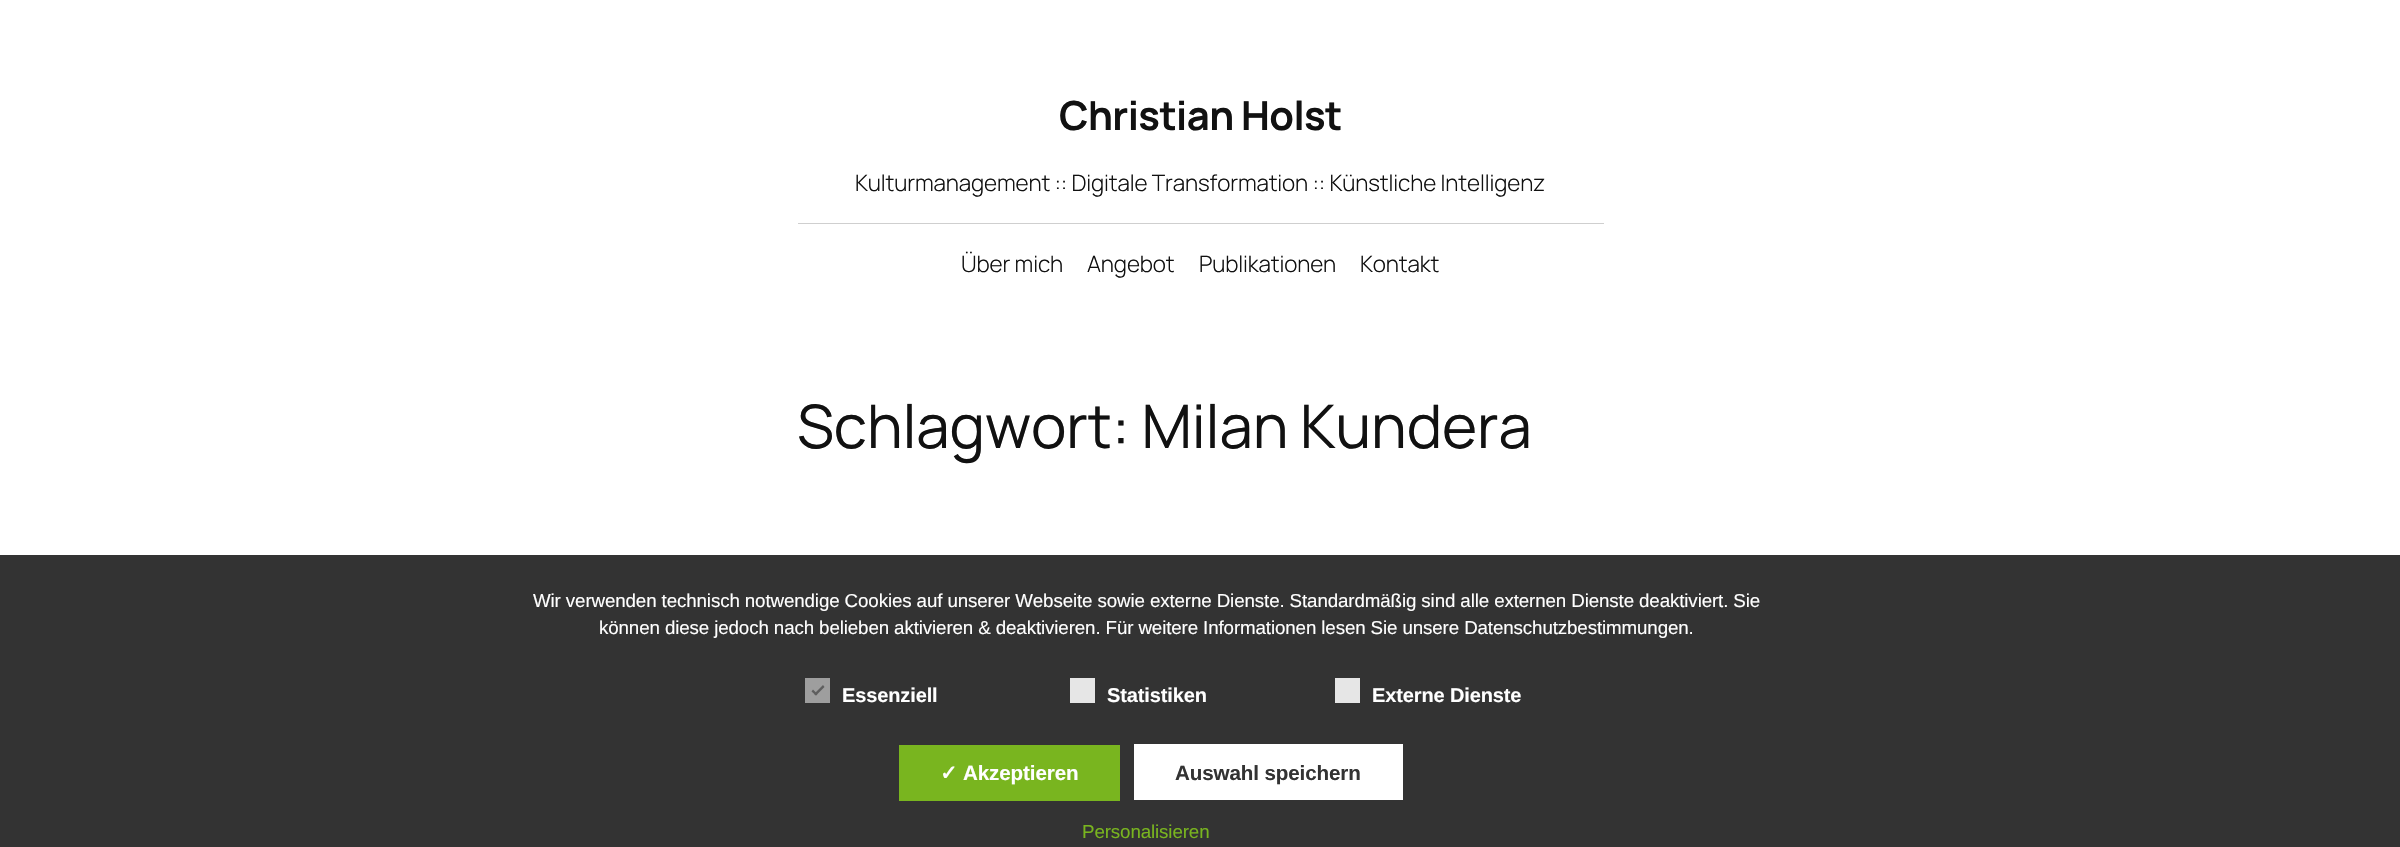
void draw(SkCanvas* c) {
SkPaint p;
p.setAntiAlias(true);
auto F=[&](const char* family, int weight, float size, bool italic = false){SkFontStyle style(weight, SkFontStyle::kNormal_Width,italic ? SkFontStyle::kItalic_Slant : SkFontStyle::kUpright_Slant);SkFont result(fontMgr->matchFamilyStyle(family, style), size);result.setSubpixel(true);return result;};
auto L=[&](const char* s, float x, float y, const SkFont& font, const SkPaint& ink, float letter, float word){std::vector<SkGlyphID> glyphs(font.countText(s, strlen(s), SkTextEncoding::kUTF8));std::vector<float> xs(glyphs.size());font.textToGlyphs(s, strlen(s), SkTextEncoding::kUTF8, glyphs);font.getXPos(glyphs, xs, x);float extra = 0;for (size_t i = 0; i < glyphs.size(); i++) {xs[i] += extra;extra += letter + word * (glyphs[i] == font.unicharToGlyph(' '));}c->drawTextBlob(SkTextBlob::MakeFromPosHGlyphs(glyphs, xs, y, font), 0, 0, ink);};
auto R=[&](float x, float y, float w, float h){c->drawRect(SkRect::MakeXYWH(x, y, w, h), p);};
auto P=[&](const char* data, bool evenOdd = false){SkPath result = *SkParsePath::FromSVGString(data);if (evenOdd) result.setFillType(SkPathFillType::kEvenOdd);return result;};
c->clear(0xffffffff);
auto f1 = F("Manrope",700,40);
p.setColor(0xff111111);
L("Christian Holst",1059,130,f1,p,-.6,0);
auto f2 = F("Manrope",300,22.5);
L("Kulturmanagement :: Digitale Transformation :: Künstliche Intelligenz",855,191,f2,p,-.12,0);
p.setColor(0xffcfcfcf);
R(798,223,806,1);
p.setColor(0xff111111);
L("Über mich",961,272,f2,p,-.12,0);
L("Angebot",1087,272,f2,p,-.12,0);
L("Publikationen",1199,272,f2,p,-.12,0);
L("Kontakt",1360,272,f2,p,-.12,0);
auto f3 = F("Manrope",400,60);
L("Schlagwort: Milan Kundera",797,448,f3,p,-.12,0);
p.setColor(0xff333333);
R(0,555,2400,292);
auto f4 = F("Liberation Sans",400,18.75);
p.setColor(0xffffffff);
L("Wir verwenden technisch notwendige Cookies auf unserer Webseite sowie externe Dienste. Standardmäßig sind alle externen Dienste deaktiviert. Sie",533,607,f4,p,-.12,0);
L("können diese jedoch nach belieben aktivieren & deaktivieren. Für weitere Informationen lesen Sie unsere Datenschutzbestimmungen.",599,634,f4,p,-.12,0);
p.setColor(0xff9e9e9e);
R(805,678,25,25);
p.setColor(0xff5e5e5e);
c->drawPath(P("M823 685l1.5 2l-8.5 8.5l-2-1.5z"),p);
c->drawPath(P("M813 689.5l4.5 4.5l-1.5 1.5l-4.5-4z"),p);
auto f5 = F("Liberation Sans",700,20);
p.setColor(0xffffffff);
L("Essenziell",842,702,f5,p,-.12,0);
p.setColor(0xffe6e6e6);
R(1070,678,25,25);
p.setColor(0xffffffff);
L("Statistiken",1107,702,f5,p,-.12,0);
p.setColor(0xffe6e6e6);
R(1335,678,25,25);
p.setColor(0xffffffff);
L("Externe Dienste",1372,702,f5,p,-.12,0);
p.setColor(0xff79b51f);
R(899,745,221,56);
auto f6 = F("DejaVu Sans",700,20.6);
p.setColor(0xffffffff);
L("✓",940,780,f6,p,-.12,0);
auto f7 = F("Liberation Sans",700,20.6);
L("Akzeptieren",963,780,f7,p,-.12,0);
R(1134,744,269,56);
p.setColor(0xff333333);
L("Auswahl speichern",1175,780,f7,p,-.12,0);
p.setColor(0xff79b51f);
L("Personalisieren",1082,838,f4,p,-.12,0);
}
